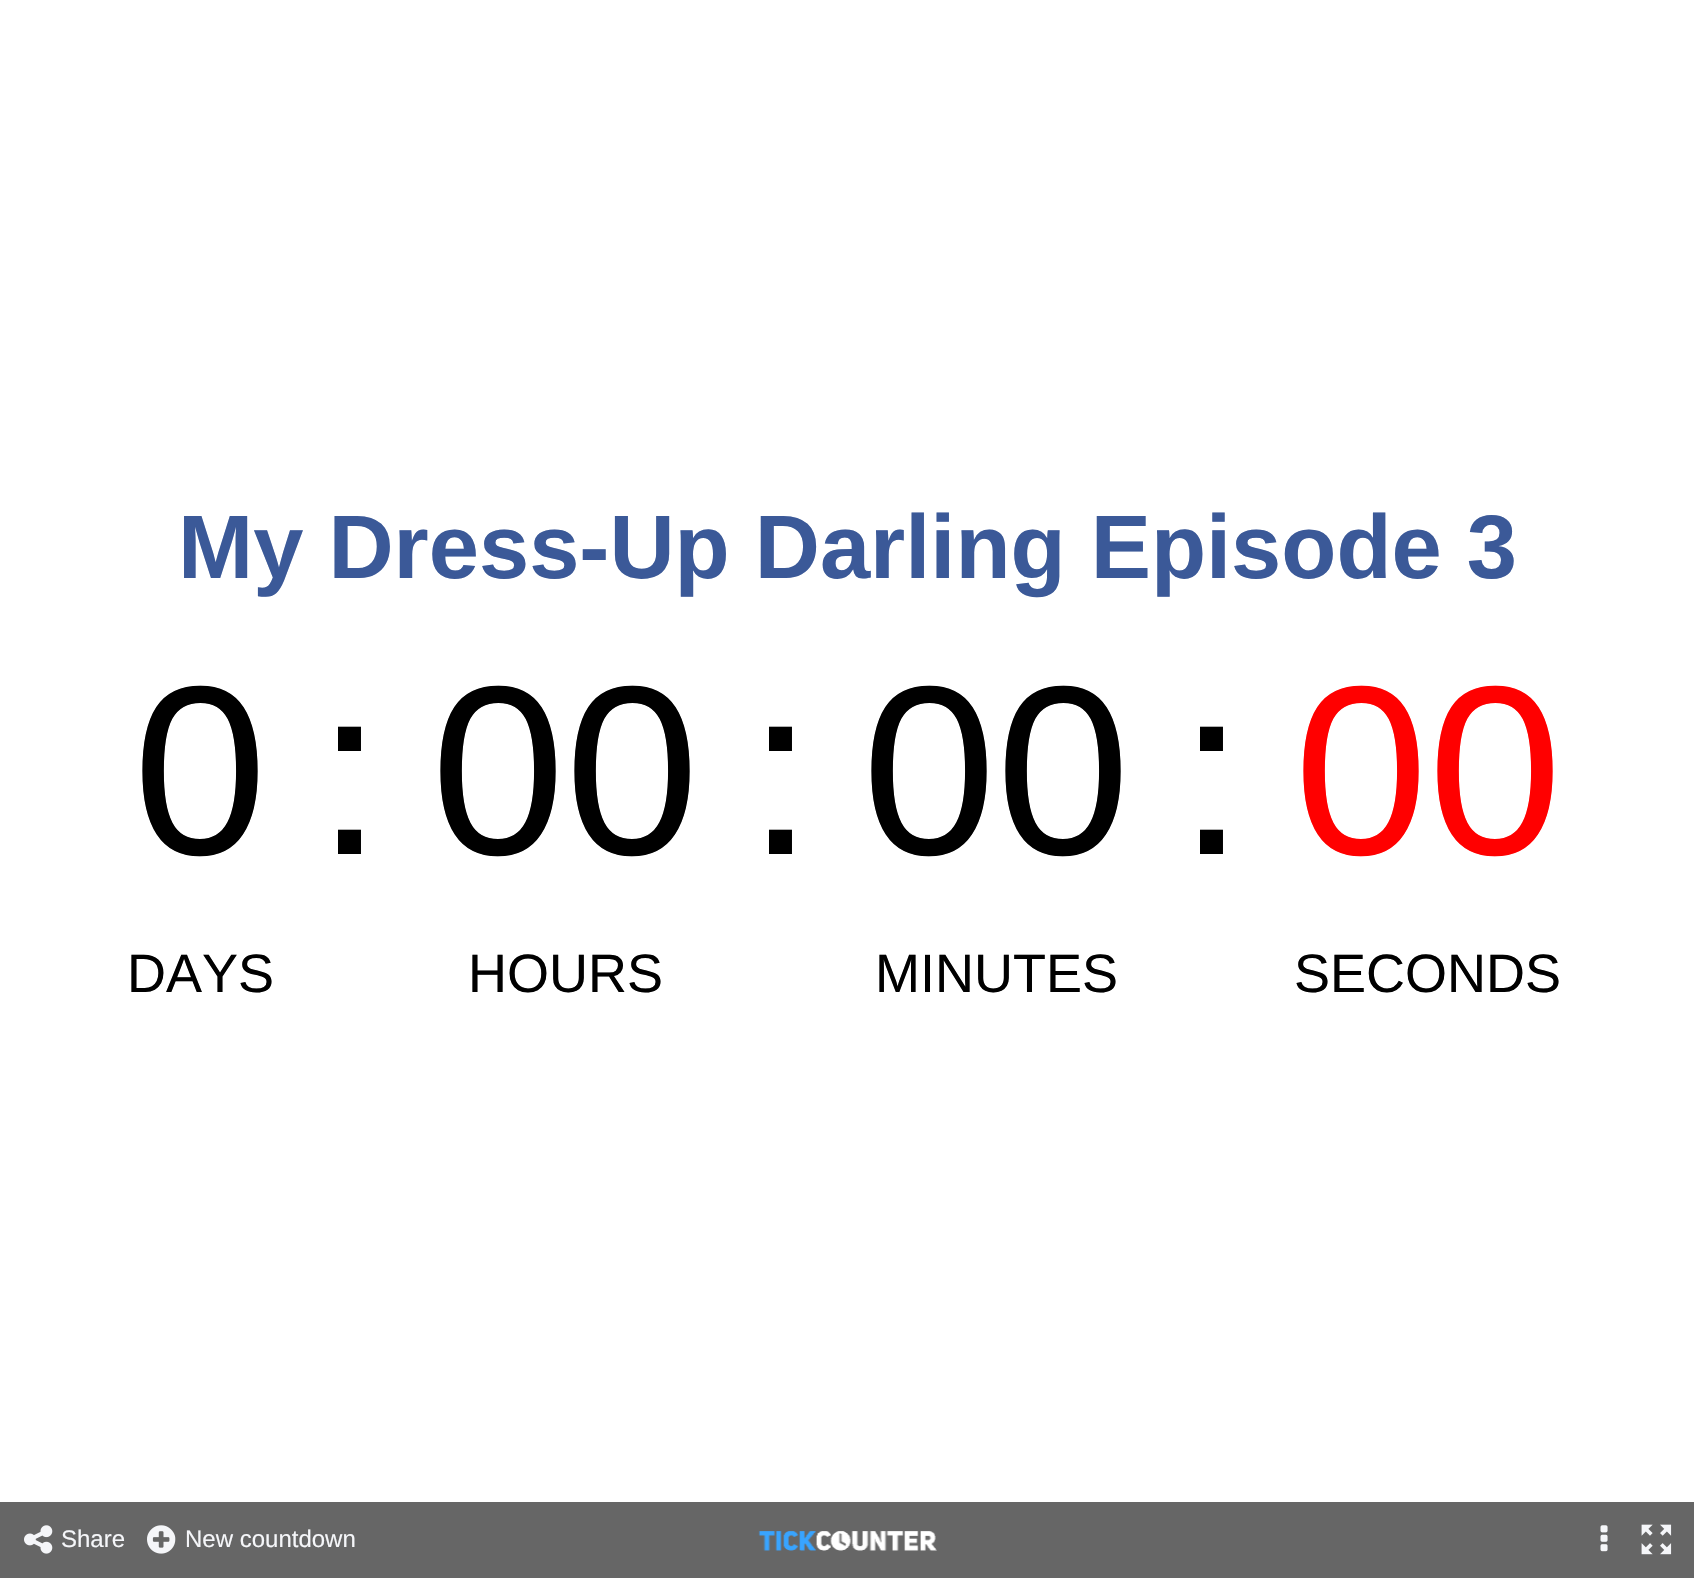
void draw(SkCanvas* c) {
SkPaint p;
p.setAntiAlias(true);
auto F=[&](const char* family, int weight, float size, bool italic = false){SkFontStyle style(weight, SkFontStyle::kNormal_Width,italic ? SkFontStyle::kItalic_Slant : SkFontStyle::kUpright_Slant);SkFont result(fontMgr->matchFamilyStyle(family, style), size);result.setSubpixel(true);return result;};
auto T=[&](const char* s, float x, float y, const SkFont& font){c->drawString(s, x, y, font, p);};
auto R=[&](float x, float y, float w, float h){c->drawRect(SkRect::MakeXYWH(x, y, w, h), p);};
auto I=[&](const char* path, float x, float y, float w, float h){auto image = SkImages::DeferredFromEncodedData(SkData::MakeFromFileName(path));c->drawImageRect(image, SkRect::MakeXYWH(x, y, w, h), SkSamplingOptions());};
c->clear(0xffffffff);
auto f1 = F("Liberation Sans",700,90.25);
p.setColor(0xff3b5998);
T("My Dress-Up Darling Episode 3",178,578,f1);
auto f2 = F("Liberation Sans",400,241);
p.setColor(0xff000000);
T("0",133,854,f2);
auto f3 = F("Liberation Sans",400,54);
T("DAYS",127,992,f3);
T(":",316,854,f2);
T("00",431,854,f2);
T("HOURS",468,992,f3);
T(":",747,854,f2);
T("00",862,854,f2);
T("MINUTES",875,992,f3);
T(":",1178,854,f2);
p.setColor(0xffff0000);
T("00",1294,854,f2);
p.setColor(0xff000000);
T("SECONDS",1294,992,f3);
p.setColor(0xff666666);
R(0,1502,1694,76);
I("1.png",24,1525,29,29);
auto f4 = F("Liberation Sans",400,24);
p.setColor(0xfff5f6f9);
T("Share",61,1547,f4);
I("2.png",147,1525,29,29);
T("New countdown",185,1547,f4);
I("3.png",758,1531,179,20);
I("4.png",1600,1525,8,27);
I("5.png",1641,1524,31,31);
}
